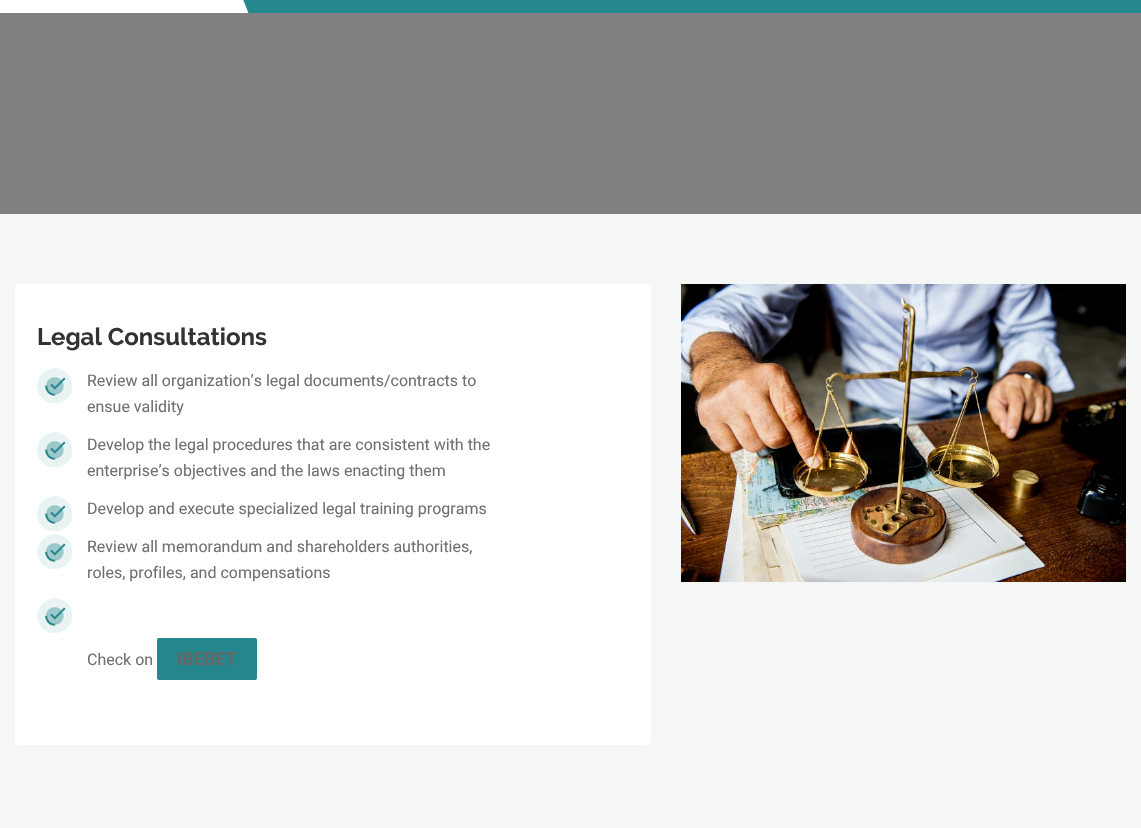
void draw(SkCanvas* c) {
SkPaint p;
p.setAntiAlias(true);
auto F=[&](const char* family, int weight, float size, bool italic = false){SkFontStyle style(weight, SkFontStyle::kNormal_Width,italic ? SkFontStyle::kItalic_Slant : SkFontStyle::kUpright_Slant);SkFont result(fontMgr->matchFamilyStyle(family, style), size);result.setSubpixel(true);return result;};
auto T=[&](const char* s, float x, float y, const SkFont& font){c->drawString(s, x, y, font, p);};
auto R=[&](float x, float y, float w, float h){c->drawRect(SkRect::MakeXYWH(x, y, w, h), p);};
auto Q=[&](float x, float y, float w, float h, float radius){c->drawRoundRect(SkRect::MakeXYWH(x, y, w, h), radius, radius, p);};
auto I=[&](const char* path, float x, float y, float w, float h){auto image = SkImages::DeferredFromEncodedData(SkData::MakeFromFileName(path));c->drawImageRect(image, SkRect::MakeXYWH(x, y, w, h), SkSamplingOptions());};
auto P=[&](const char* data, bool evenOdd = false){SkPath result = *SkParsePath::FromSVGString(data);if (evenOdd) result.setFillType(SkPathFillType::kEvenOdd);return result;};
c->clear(0xfff5f7f7);
p.setColor(0xff26868d);
R(243,0,898,13);
p.setColor(0xffffffff);
c->drawPath(P("M-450-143v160h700l-63-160z"),p);
p.setColor(0xff808080);
R(0,13,1141,201);
p.setColor(0xffffffff);
Q(15,284,636,461,4);
auto f1 = F("Raleway",700,24);
p.setColor(0xff333333);
T("Legal Consultations",37,345,f1);
I("1.png",37,368,35,35);
auto f2 = F("Roboto",400,16);
p.setColor(0xff707070);
T("Review all organization’s legal documents/contracts to",87,386,f2);
T("ensue validity",87,412,f2);
I("1.png",37,432,35,35);
T("Develop the legal procedures that are consistent with the",87,450,f2);
T("enterprise’s objectives and the laws enacting them",87,476,f2);
I("1.png",37,496,35,35);
T("Develop and execute specialized legal training programs",87,514,f2);
I("1.png",37,534,35,35);
T("Review all memorandum and shareholders authorities,",87,552,f2);
T("roles, profiles, and compensations",87,578,f2);
I("1.png",37,598,35,35);
T("Check on",87,665,f2);
p.setColor(0xff26868d);
Q(157,638,100,42,2);
auto f3 = F("Roboto",700,18);
p.setColor(0xff666665);
T("IBEBET",177,665,f3);
I("2.png",681,284,445,298);
}
